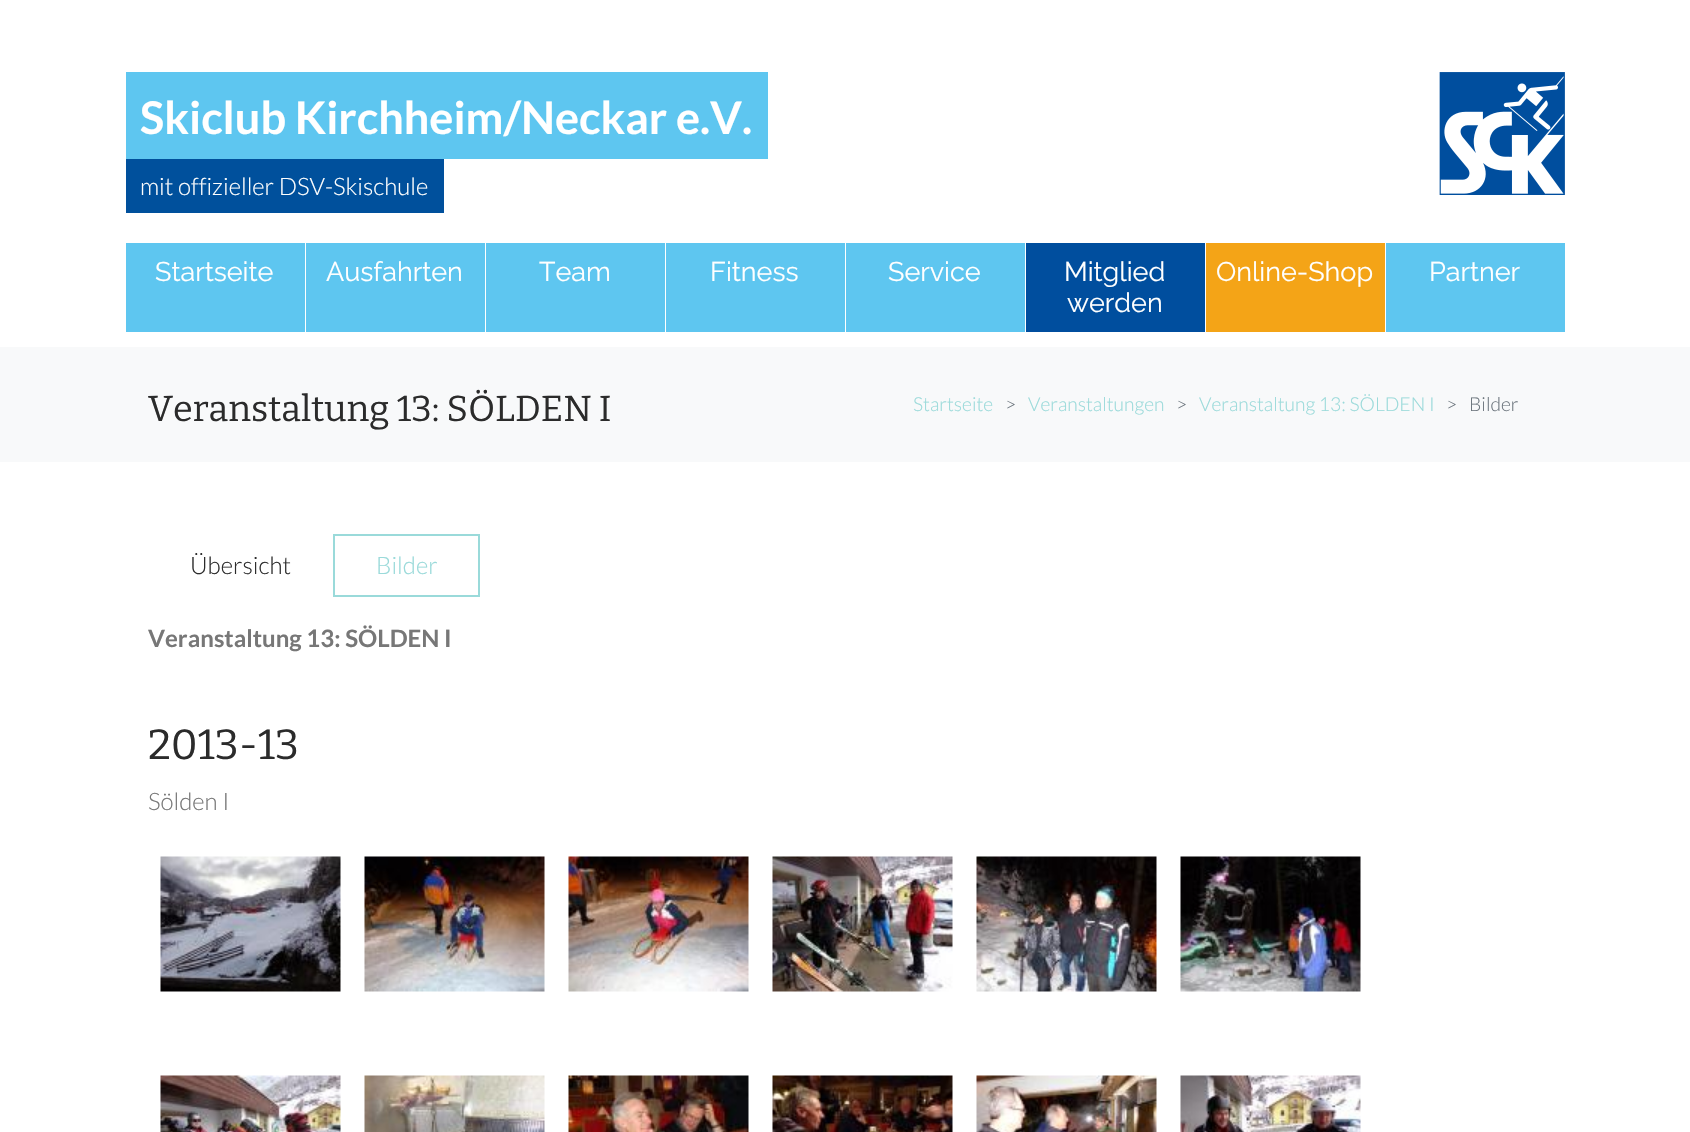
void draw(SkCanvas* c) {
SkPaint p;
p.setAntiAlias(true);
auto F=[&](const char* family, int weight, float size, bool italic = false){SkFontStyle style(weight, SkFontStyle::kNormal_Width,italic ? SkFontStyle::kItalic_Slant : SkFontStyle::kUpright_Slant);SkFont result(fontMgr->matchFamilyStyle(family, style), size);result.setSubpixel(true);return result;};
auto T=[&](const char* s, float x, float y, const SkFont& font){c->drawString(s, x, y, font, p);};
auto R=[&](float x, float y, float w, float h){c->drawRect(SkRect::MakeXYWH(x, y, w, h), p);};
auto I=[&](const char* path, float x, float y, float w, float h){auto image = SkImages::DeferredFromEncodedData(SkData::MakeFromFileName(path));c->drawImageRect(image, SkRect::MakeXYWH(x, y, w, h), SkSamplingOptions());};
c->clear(0xffffffff);
p.setColor(0xff5ec6f0);
R(126,72,642,87);
auto f1 = F("Lato",700,45);
p.setColor(0xffffffff);
T("Skiclub Kirchheim/Neckar e.V.",140,134,f1);
p.setColor(0xff00509c);
R(126,159,318,54);
auto f2 = F("Lato",300,24);
p.setColor(0xffffffff);
T("mit offizieller DSV-Skischule",140,195,f2);
I("1.png",1439,72,126,123);
p.setColor(0xff5ec6f0);
R(126,243,179,89);
auto f3 = F("Raleway",400,27);
p.setColor(0xffffffff);
T("Startseite",155,281,f3);
p.setColor(0xff5ec6f0);
R(306,243,179,89);
p.setColor(0xffffffff);
T("Ausfahrten",326,281,f3);
p.setColor(0xff5ec6f0);
R(486,243,179,89);
p.setColor(0xffffffff);
T("Team",539,281,f3);
p.setColor(0xff5ec6f0);
R(666,243,179,89);
p.setColor(0xffffffff);
T("Fitness",710,281,f3);
p.setColor(0xff5ec6f0);
R(846,243,179,89);
p.setColor(0xffffffff);
T("Service",888,281,f3);
p.setColor(0xff004e9e);
R(1026,243,179,89);
p.setColor(0xffffffff);
T("Mitglied",1064,281,f3);
T("werden",1067,312,f3);
p.setColor(0xfff4a417);
R(1206,243,179,89);
p.setColor(0xffffffff);
T("Online-Shop",1216,281,f3);
p.setColor(0xff5ec6f0);
R(1386,243,179,89);
p.setColor(0xffffffff);
T("Partner",1429,281,f3);
p.setColor(0xfff8f9fa);
R(0,347,1690,115);
auto f4 = F("Bitter",100,36);
p.setColor(0xff2b2b2b);
T("Veranstaltung 13: SÖLDEN I",148,421,f4);
auto f5 = F("Lato",300,19.25);
p.setColor(0xff9adada);
T("Startseite",913,411,f5);
p.setColor(0xff6c757d);
T(">",1005,411,f5);
p.setColor(0xff9adada);
T("Veranstaltungen",1028,411,f5);
p.setColor(0xff6c757d);
T(">",1176,411,f5);
p.setColor(0xff9adada);
T("Veranstaltung 13: SÖLDEN I",1199,411,f5);
p.setColor(0xff6c757d);
T(">",1446,411,f5);
T("Bilder",1469,411,f5);
p.setColor(0xff2b2b2b);
T("Übersicht",190,574,f2);
p.setStroke(true);
p.setStrokeWidth(2);
p.setColor(0xff9adada);
c->drawRect(SkRect::MakeXYWH(334,535,145,61),p);
p.setStroke(false);
T("Bilder",376,574,f2);
auto f6 = F("Lato",700,24);
p.setColor(0xff777777);
T("Veranstaltung 13: SÖLDEN I",148,647,f6);
auto f7 = F("Bitter",100,42);
p.setColor(0xff2b2b2b);
T("2013-13",148,759,f7);
p.setColor(0xff777777);
T("Sölden I",148,810,f2);
I("2.png",160,856,181,136);
I("3.png",364,856,181,136);
I("4.png",568,856,181,136);
I("5.png",772,856,181,136);
I("6.png",976,856,181,136);
I("7.png",1180,856,181,136);
I("8.png",160,1075,181,57);
I("9.png",364,1075,181,57);
I("10.png",568,1075,181,57);
I("11.png",772,1075,181,57);
I("12.png",976,1075,181,57);
I("13.png",1180,1075,181,57);
}
